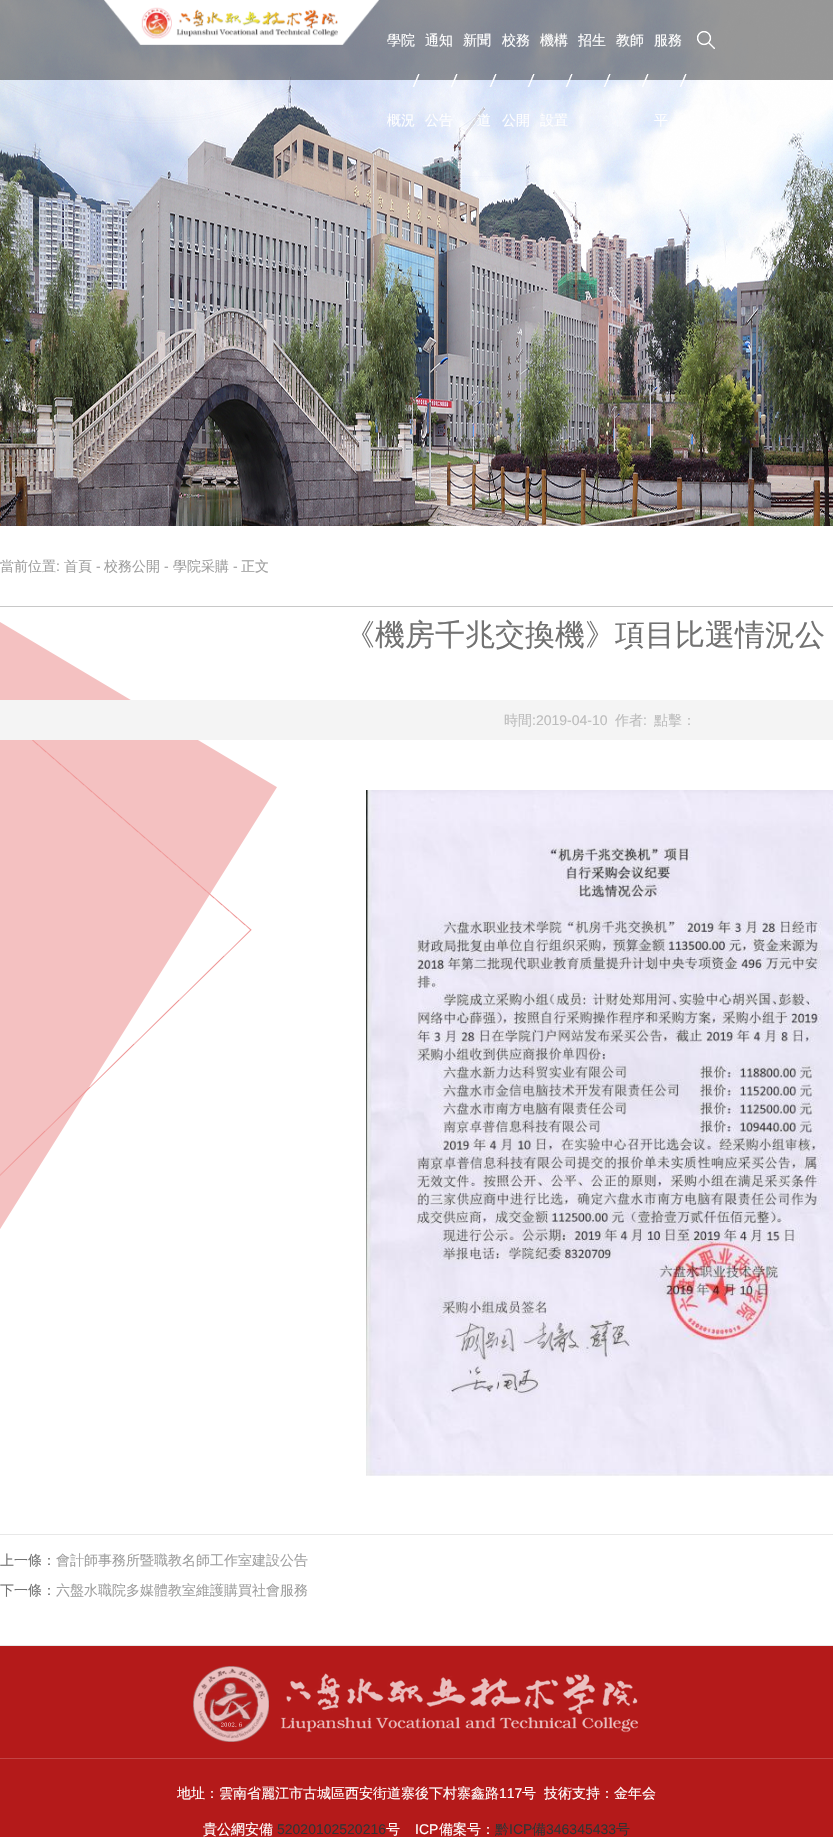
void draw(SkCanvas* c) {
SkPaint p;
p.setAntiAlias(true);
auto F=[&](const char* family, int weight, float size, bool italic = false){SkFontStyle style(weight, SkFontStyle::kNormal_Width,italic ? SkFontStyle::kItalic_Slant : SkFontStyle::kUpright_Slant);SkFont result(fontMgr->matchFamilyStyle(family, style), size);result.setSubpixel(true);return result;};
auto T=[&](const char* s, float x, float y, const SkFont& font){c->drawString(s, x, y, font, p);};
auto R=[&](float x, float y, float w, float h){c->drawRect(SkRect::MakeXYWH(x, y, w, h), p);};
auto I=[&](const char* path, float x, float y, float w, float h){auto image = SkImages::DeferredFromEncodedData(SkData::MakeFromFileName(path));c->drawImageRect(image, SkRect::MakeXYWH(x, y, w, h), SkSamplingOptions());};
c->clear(0xffffffff);
I("1.png",0,622,277,607);
I("2.png",0,0,833,526);
p.setColor(0x7a282828);
R(0,0,833,80);
I("3.png",104,0,275,45);
I("4.png",412,74,8,13);
auto f1 = F("WenQuanYi Zen Hei",500,14);
p.setColor(0xffffffff);
T("學院",387,45,f1);
T("概況",387,125,f1);
I("5.png",451,74,7,13);
T("通知",425,45,f1);
T("公告",425,125,f1);
I("6.png",489,74,8,13);
T("新聞",463,45,f1);
T("道",477,125,f1);
I("7.png",527,74,8,13);
T("校務",502,45,f1);
T("公開",502,125,f1);
I("8.png",565,74,8,13);
T("機構",540,45,f1);
T("設置",540,125,f1);
I("9.png",603,74,8,13);
T("招生",578,45,f1);
I("10.png",642,74,7,13);
T("教師",616,45,f1);
I("11.png",679,74,8,13);
T("服務",654,45,f1);
T("平",654,125,f1);
I("12.png",697,31,18,18);
p.setColor(0xffc8c8c8);
R(0,606,833,1);
p.setColor(0xff9f9f9f);
T("當前位置",0,571,f1);
auto f2 = F("Liberation Sans",400,14);
T(":",56,571,f2);
T("首頁",64,571,f1);
T("-",96,571,f2);
T("校務公開",104,571,f1);
T("-",164,571,f2);
T("學院采購",173,571,f1);
T("-",233,571,f2);
T("正文",241,571,f1);
auto f3 = F("WenQuanYi Zen Hei",500,30);
p.setColor(0xff727272);
T("《機房千兆交換機》項目比選情況公",345,645,f3);
p.setColor(0xfff4f4f4);
R(0,700,833,40);
p.setColor(0xffbcbcbc);
T("時間",504,725,f1);
T(":2019-04-10",532,725,f2);
T("作者",615,725,f1);
T(":",643,725,f2);
T("點擊：",654,725,f1);
I("13.png",366,790,467,686);
p.setColor(0xffe8e8e8);
R(0,1534,833,1);
R(0,1645,833,1);
p.setColor(0xff727272);
T("上一條：",0,1565,f1);
p.setColor(0xff9f9f9f);
T("會計師事務所暨職教名師工作室建設公告",56,1565,f1);
p.setColor(0xff727272);
T("下一條：",0,1595,f1);
p.setColor(0xff9f9f9f);
T("六盤水職院多媒體教室維護購買社會服務",56,1595,f1);
p.setColor(0xffb41a1a);
R(0,1646,833,191);
p.setColor(0xffc24545);
R(0,1758,833,1);
I("14.png",193,1666,445,76);
p.setColor(0xffffffff);
T("地址：雲南省麗江市古城區西安街道寨後下村寨鑫路",177,1798,f1);
T("117",499,1798,f2);
T("号",522,1798,f1);
T("技術支持：金年会",544,1798,f1);
T("貴公網安備",203,1834,f1);
p.setColor(0xff333333);
T("52020102520216",277,1834,f2);
p.setColor(0xffffffff);
T("号",386,1834,f1);
T("ICP",415,1834,f2);
T("備案号：",439,1834,f1);
p.setColor(0xff333333);
T("黔",495,1834,f1);
T("ICP",509,1834,f2);
T("備",532,1834,f1);
T("346345433",546,1834,f2);
T("号",616,1834,f1);
}
